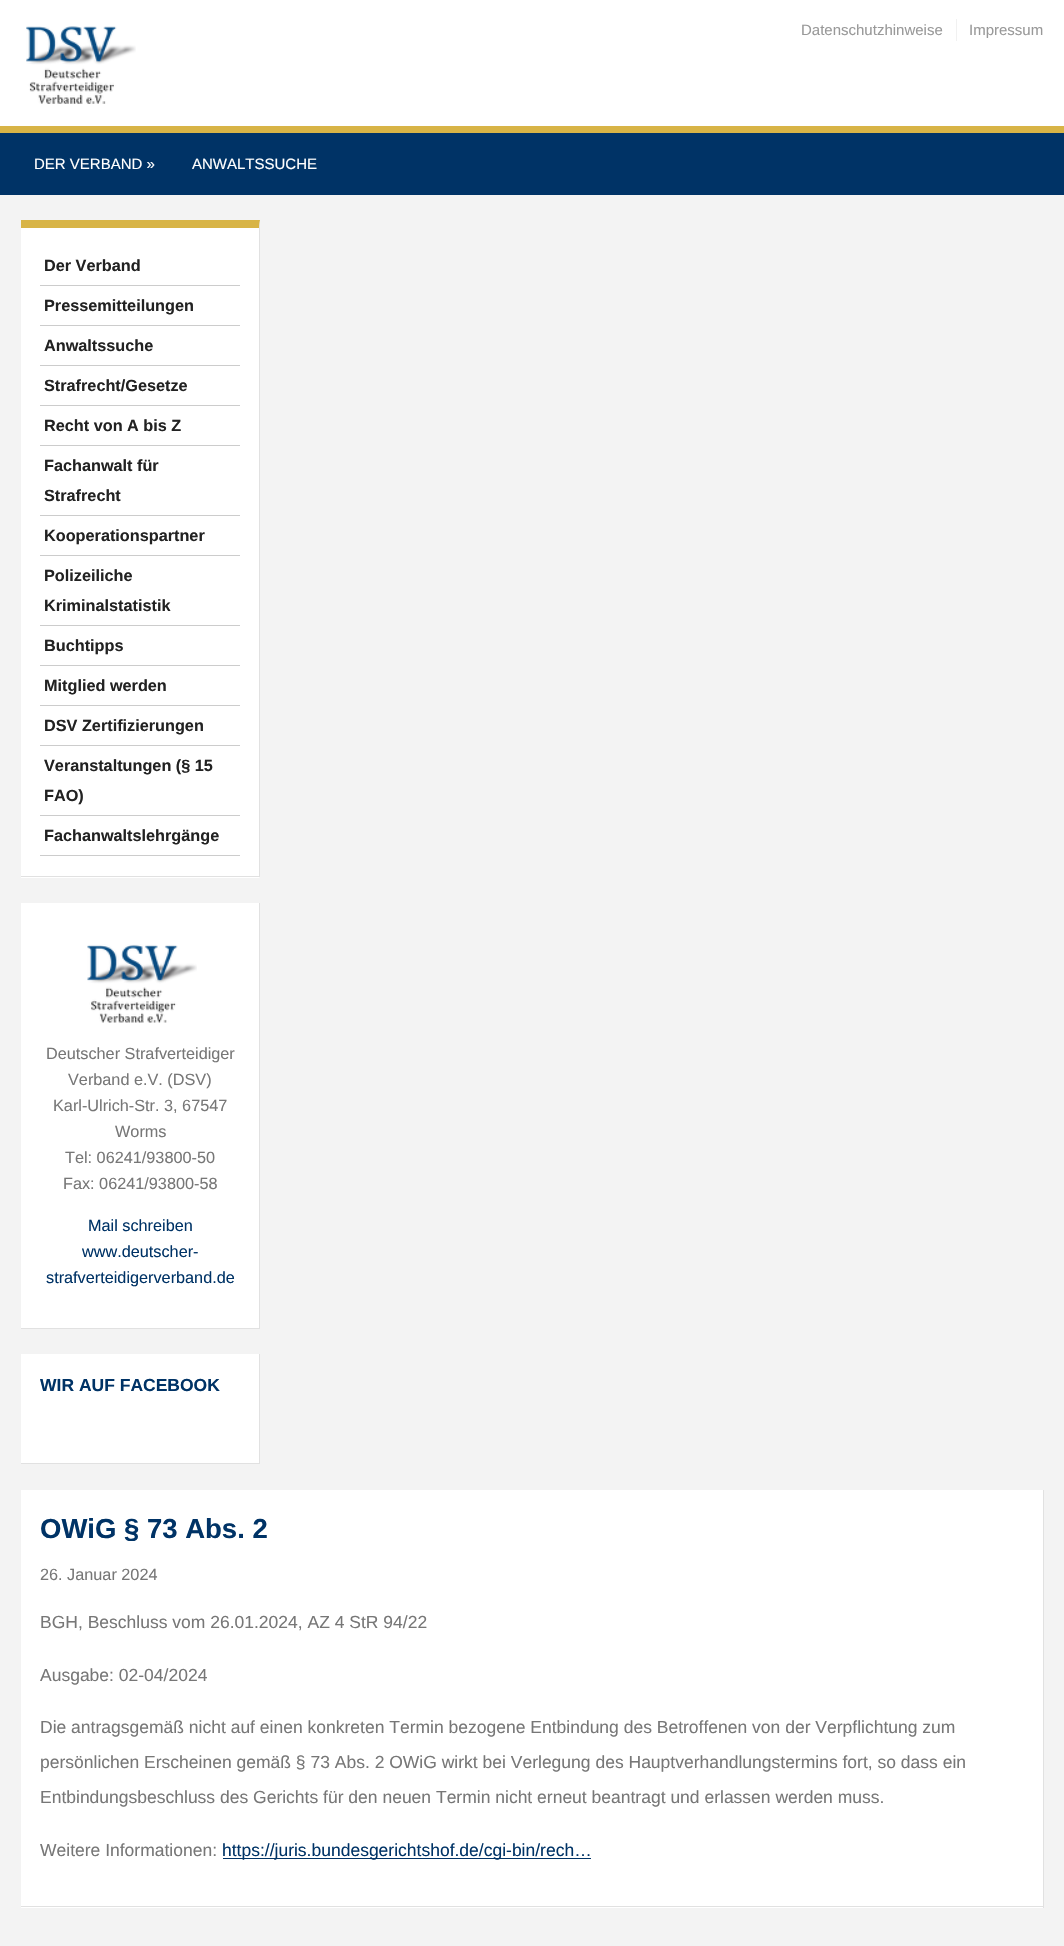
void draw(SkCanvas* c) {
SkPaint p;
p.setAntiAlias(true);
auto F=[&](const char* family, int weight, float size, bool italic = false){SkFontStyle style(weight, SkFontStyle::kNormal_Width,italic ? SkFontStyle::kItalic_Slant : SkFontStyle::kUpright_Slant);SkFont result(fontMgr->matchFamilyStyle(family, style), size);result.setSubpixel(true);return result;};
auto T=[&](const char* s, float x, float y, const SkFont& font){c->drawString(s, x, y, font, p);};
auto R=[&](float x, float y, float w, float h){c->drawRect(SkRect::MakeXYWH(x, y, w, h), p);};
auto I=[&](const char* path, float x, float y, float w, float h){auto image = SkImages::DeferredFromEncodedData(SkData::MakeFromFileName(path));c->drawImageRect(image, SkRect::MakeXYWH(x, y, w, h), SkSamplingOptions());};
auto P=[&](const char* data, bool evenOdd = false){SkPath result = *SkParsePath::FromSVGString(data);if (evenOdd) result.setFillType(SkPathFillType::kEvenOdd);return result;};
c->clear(0xfff3f3f3);
p.setColor(0xffffffff);
R(0,0,1064,126);
I("1.png",26,26,110,78);
auto f1 = F("Liberation Sans",400,15);
p.setColor(0xff999999);
T("Datenschutzhinweise",801,35,f1);
p.setColor(0xfff1f1f1);
R(956,19,1,22);
p.setColor(0xff999999);
T("Impressum",969,35,f1);
p.setColor(0xff003366);
R(0,133,1064,62);
p.setColor(0xffd8b446);
R(0,126,1064,7);
p.setColor(0xffffffff);
T("DER VERBAND »",34,169,f1);
T("ANWALTSSUCHE",192,169,f1);
R(21,220,239,658);
p.setColor(0xffd8b446);
c->drawPath(P("M21 220h239l-1 8h-238z"),p);
p.setColor(0xffe1e1e1);
c->drawPath(P("M260 220v658l-1-2v-648z"),p);
R(21,876,239,1);
p.setColor(0xffcccccc);
R(40,285,200,1);
auto f2 = F("Liberation Sans",700,16.25);
p.setColor(0xff222222);
T("Der Verband",44,271,f2);
p.setColor(0xffcccccc);
R(40,325,200,1);
p.setColor(0xff222222);
T("Pressemitteilungen",44,311,f2);
p.setColor(0xffcccccc);
R(40,365,200,1);
p.setColor(0xff222222);
T("Anwaltssuche",44,351,f2);
p.setColor(0xffcccccc);
R(40,405,200,1);
p.setColor(0xff222222);
T("Strafrecht/Gesetze",44,391,f2);
p.setColor(0xffcccccc);
R(40,445,200,1);
p.setColor(0xff222222);
T("Recht von A bis Z",44,431,f2);
p.setColor(0xffcccccc);
R(40,515,200,1);
p.setColor(0xff222222);
T("Fachanwalt für",44,471,f2);
T("Strafrecht",44,501,f2);
p.setColor(0xffcccccc);
R(40,555,200,1);
p.setColor(0xff222222);
T("Kooperationspartner",44,541,f2);
p.setColor(0xffcccccc);
R(40,625,200,1);
p.setColor(0xff222222);
T("Polizeiliche",44,581,f2);
T("Kriminalstatistik",44,611,f2);
p.setColor(0xffcccccc);
R(40,665,200,1);
p.setColor(0xff222222);
T("Buchtipps",44,651,f2);
p.setColor(0xffcccccc);
R(40,705,200,1);
p.setColor(0xff222222);
T("Mitglied werden",44,691,f2);
p.setColor(0xffcccccc);
R(40,745,200,1);
p.setColor(0xff222222);
T("DSV Zertifizierungen",44,731,f2);
p.setColor(0xffcccccc);
R(40,815,200,1);
p.setColor(0xff222222);
T("Veranstaltungen (§ 15",44,771,f2);
T("FAO)",44,801,f2);
p.setColor(0xffcccccc);
R(40,855,200,1);
p.setColor(0xff222222);
T("Fachanwaltslehrgänge",44,841,f2);
p.setColor(0xffffffff);
R(21,903,238,425);
p.setColor(0xffe1e1e1);
R(259,903,1,426);
R(21,1328,239,1);
I("2.png",87,944,110,79);
auto f3 = F("Liberation Sans",400,16.25);
p.setColor(0xff777777);
T("Deutscher Strafverteidiger",46,1059,f3);
T("Verband e.V. (DSV)",68,1085,f3);
T("Karl-Ulrich-Str. 3, 67547",53,1111,f3);
T("Worms",115,1137,f3);
T("Tel: 06241/93800-50",65,1163,f3);
T("Fax: 06241/93800-58",63,1189,f3);
p.setColor(0xff003366);
T("Mail schreiben",88,1231,f3);
T("www.deutscher-",82,1257,f3);
T("strafverteidigerverband.de",46,1283,f3);
p.setColor(0xffffffff);
R(21,1354,238,109);
p.setColor(0xffe1e1e1);
R(259,1354,1,110);
R(21,1463,239,1);
auto f4 = F("Liberation Sans",700,17.5);
p.setColor(0xff003366);
T("WIR AUF FACEBOOK",40,1391,f4);
p.setColor(0xffffffff);
R(21,1490,1022,418);
p.setColor(0xffe1e1e1);
R(1043,1490,1,418);
R(21,1906,1023,1);
auto f5 = F("Liberation Sans",700,27.5);
p.setColor(0xff003366);
T("OWiG § 73 Abs. 2",40,1538,f5);
p.setColor(0xff777777);
T("26. Januar 2024",40,1580,f3);
auto f6 = F("Liberation Sans",400,17.5);
T("BGH, Beschluss vom 26.01.2024, AZ 4 StR 94/22",40,1628,f6);
T("Ausgabe: 02-04/2024",40,1681,f6);
T("Die antragsgemäß nicht auf einen konkreten Termin bezogene Entbindung des Betroffenen von der Verpflichtung zum",40,1733,f6);
T("persönlichen Erscheinen gemäß § 73 Abs. 2 OWiG wirkt bei Verlegung des Hauptverhandlungstermins fort, so dass ein",40,1768,f6);
T("Entbindungsbeschluss des Gerichts für den neuen Termin nicht erneut beantragt und erlassen werden muss.",40,1803,f6);
T("Weitere Informationen:",40,1856,f6);
p.setColor(0xff003366);
R(223,1858,368,1);
T("https://juris.bundesgerichtshof.de/cgi-bin/rech…",222,1856,f6);
}
